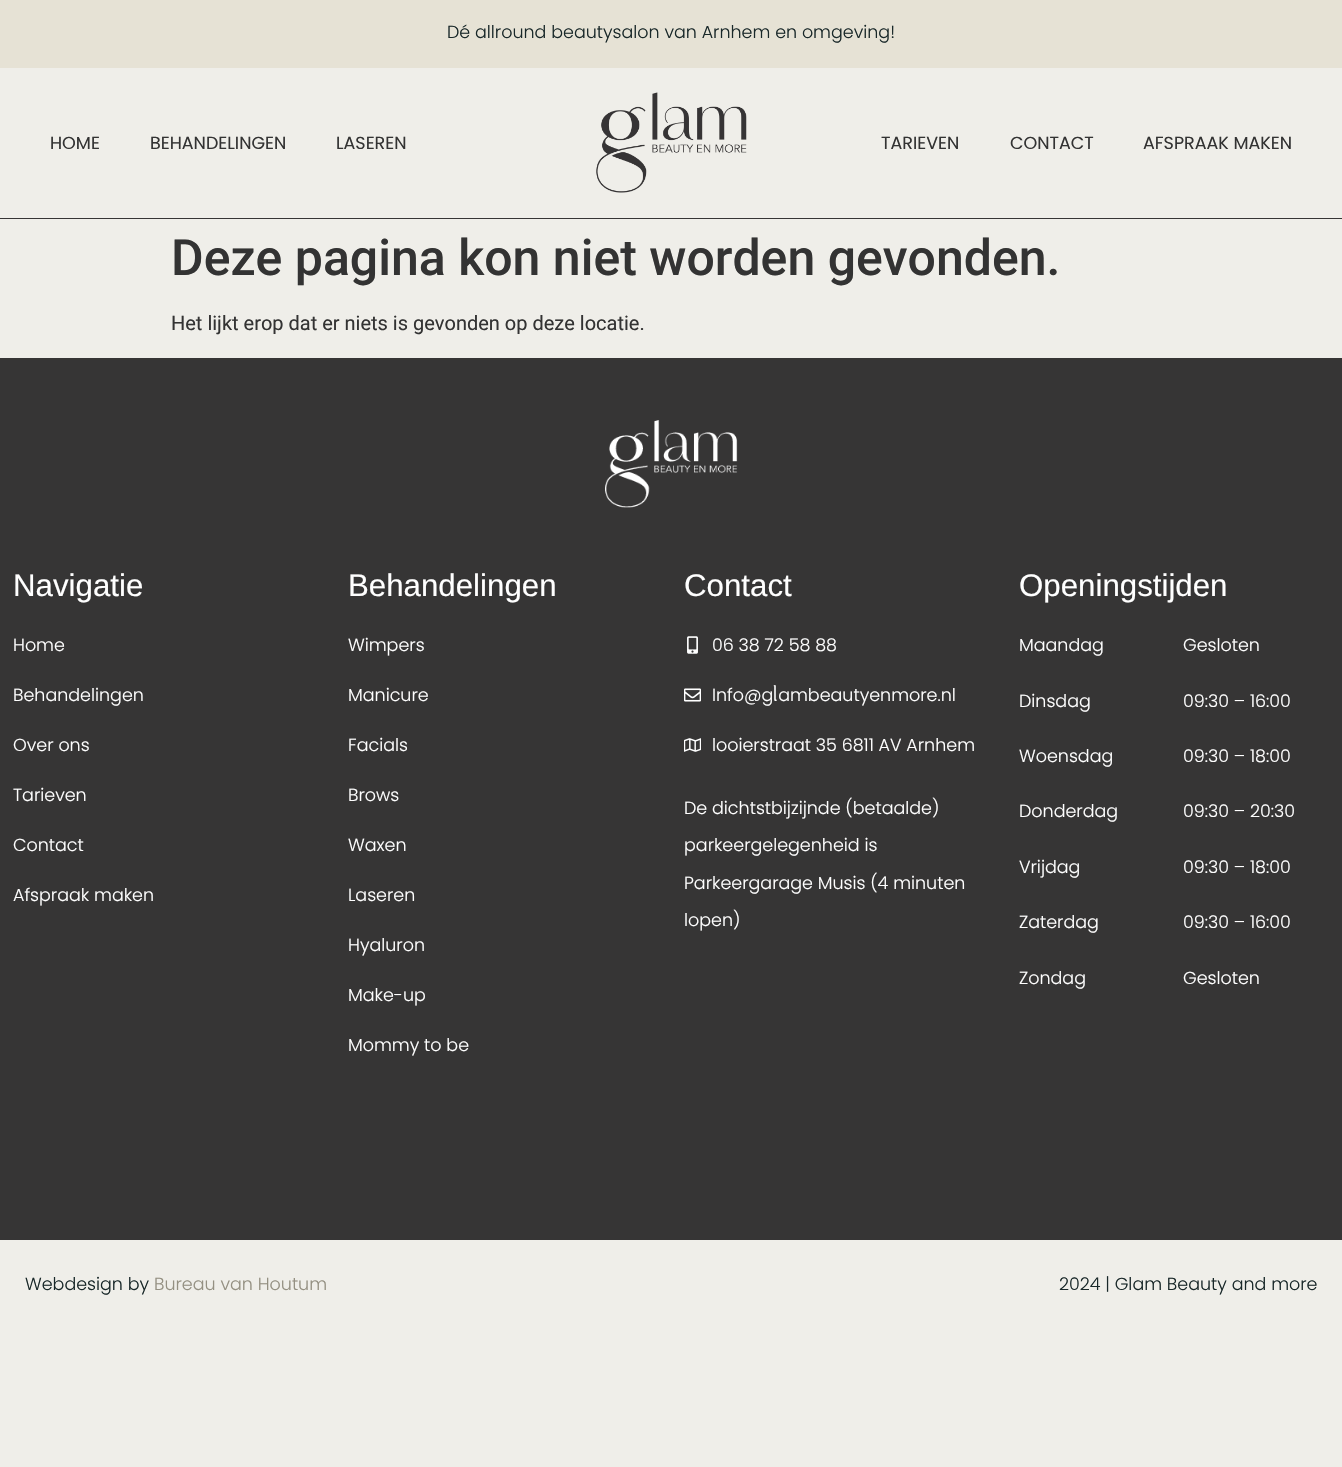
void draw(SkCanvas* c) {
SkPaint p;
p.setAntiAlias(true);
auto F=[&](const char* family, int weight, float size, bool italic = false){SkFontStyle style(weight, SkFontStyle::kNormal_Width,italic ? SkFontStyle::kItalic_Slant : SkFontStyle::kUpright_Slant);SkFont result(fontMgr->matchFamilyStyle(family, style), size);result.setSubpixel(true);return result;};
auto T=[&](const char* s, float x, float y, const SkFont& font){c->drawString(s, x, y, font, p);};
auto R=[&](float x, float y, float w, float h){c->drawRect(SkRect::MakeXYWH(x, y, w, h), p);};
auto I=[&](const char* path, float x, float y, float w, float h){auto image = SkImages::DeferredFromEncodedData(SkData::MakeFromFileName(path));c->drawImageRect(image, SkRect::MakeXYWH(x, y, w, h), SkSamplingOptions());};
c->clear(0xffefeee9);
p.setColor(0xffe6e2d5);
R(0,0,1342,68);
auto f1 = F("Poppins",300,17.5);
p.setColor(0xff192829);
T("Dé allround beautysalon van Arnhem en omgeving!",447,38,f1);
p.setColor(0xff363535);
R(0,218,1342,1);
auto f2 = F("Poppins",400,17.5);
p.setColor(0xff333333);
T("HOME",50,149,f2);
T("BEHANDELINGEN",150,149,f2);
T("LASEREN",336,149,f2);
I("1.png",596,92,151,101);
T("TARIEVEN",881,149,f2);
T("CONTACT",1010,149,f2);
T("AFSPRAAK MAKEN",1143,149,f2);
auto f3 = F("Roboto",500,50);
T("Deze pagina kon niet worden gevonden.",171,275,f3);
auto f4 = F("Roboto",400,20);
T("Het lijkt erop dat er niets is gevonden op deze locatie.",171,330,f4);
p.setColor(0xff363535);
R(0,358,1342,882);
I("2.png",605,420,133,88);
auto f5 = F("Liberation Sans",400,31.25);
p.setColor(0xffffffff);
T("Navigatie",13,596,f5);
T("Home",13,651,f1);
T("Behandelingen",13,701,f1);
T("Over ons",13,751,f1);
T("Tarieven",13,801,f1);
T("Contact",13,851,f1);
T("Afspraak maken",13,901,f1);
T("Behandelingen",348,596,f5);
T("Wimpers",348,651,f1);
T("Manicure",348,701,f1);
T("Facials",348,751,f1);
T("Brows",348,801,f1);
T("Waxen",348,851,f1);
T("Laseren",348,901,f1);
T("Hyaluron",348,951,f1);
T("Make-up",348,1001,f1);
T("Mommy to be",348,1051,f1);
T("Contact",684,596,f5);
I("3.png",687,636,11,18);
T("06 38 72 58 88",712,651,f1);
I("4.png",684,688,17,14);
T("Info@g ambeautyenmore.nl",712,701,f1);
auto f6 = F("FreeSerif",400,17.5);
T("ᥣ",773,701,f6);
I("5.png",684,738,17,14);
T("looierstraat 35 6811 AV Arnhem",712,751,f1);
T("De dichtstbijzijnde (betaalde)",684,814,f1);
T("parkeergelegenheid is",684,851,f1);
T("Parkeergarage Musis (4 minuten",684,889,f1);
T("lopen)",684,926,f1);
T("Openingstijden",1019,596,f5);
T("Maandag",1019,651,f1);
T("Gesloten",1183,651,f1);
T("Dinsdag",1019,707,f1);
T("09:30 – 16:00",1183,707,f1);
T("Woensdag",1019,762,f1);
T("09:30 – 18:00",1183,762,f1);
T("Donderdag",1019,817,f1);
T("09:30 – 20:30",1183,817,f1);
T("Vrijdag",1019,873,f1);
T("09:30 – 18:00",1183,873,f1);
T("Zaterdag",1019,928,f1);
T("09:30 – 16:00",1183,928,f1);
T("Zondag",1019,984,f1);
T("Gesloten",1183,984,f1);
p.setColor(0xff192829);
T("Webdesign by",25,1290,f1);
p.setColor(0xff949082);
T("Bureau van Houtum",154,1290,f1);
p.setColor(0xff192829);
T("2024 | Glam Beauty and more",1059,1290,f1);
}
